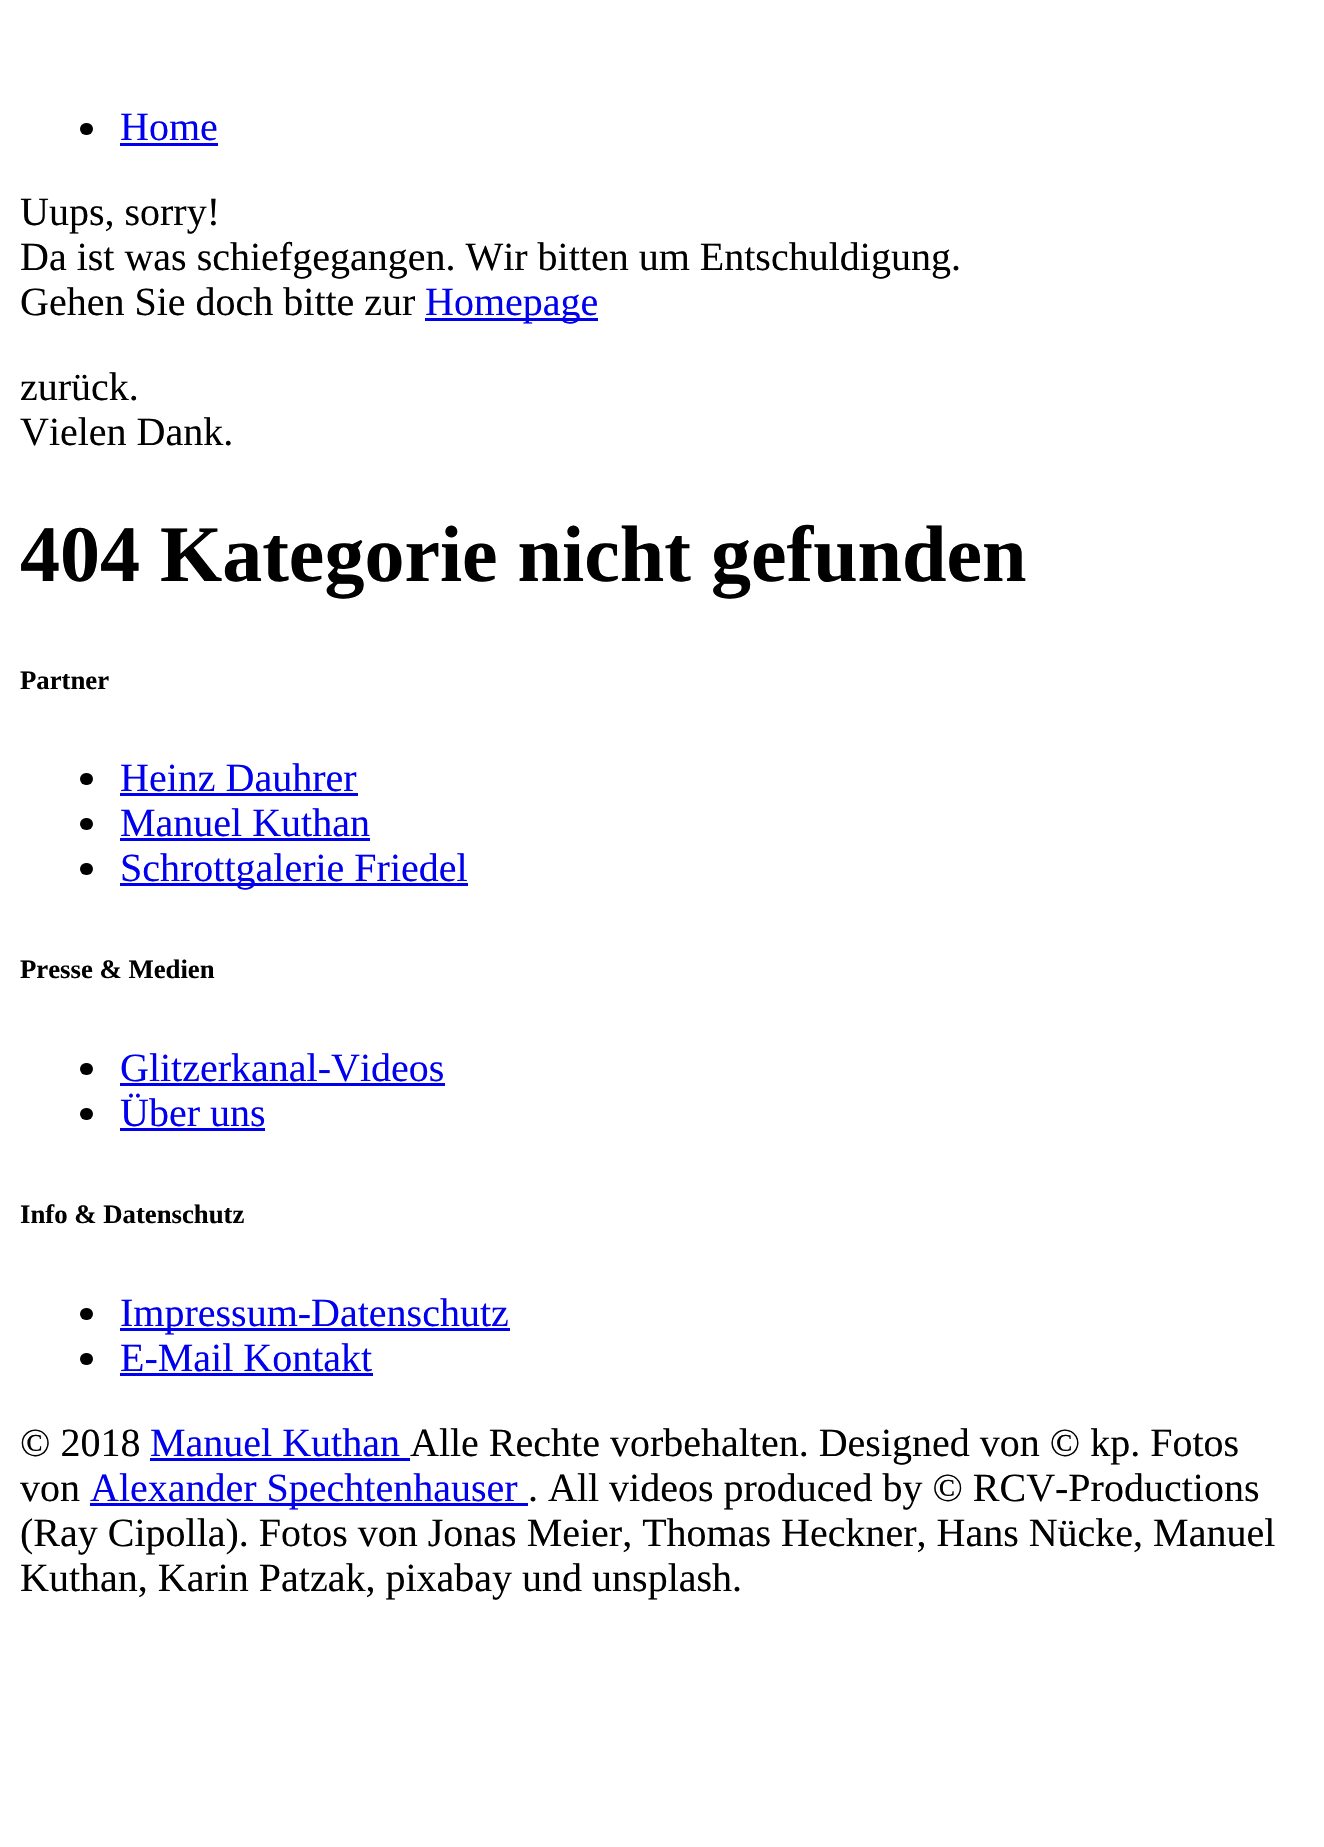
void draw(SkCanvas* c) {
SkPaint p;
p.setAntiAlias(true);
auto F=[&](const char* family, int weight, float size, bool italic = false){SkFontStyle style(weight, SkFontStyle::kNormal_Width,italic ? SkFontStyle::kItalic_Slant : SkFontStyle::kUpright_Slant);SkFont result(fontMgr->matchFamilyStyle(family, style), size);result.setSubpixel(true);return result;};
auto T=[&](const char* s, float x, float y, const SkFont& font){c->drawString(s, x, y, font, p);};
auto R=[&](float x, float y, float w, float h){c->drawRect(SkRect::MakeXYWH(x, y, w, h), p);};
auto Q=[&](float x, float y, float w, float h, float radius){c->drawRoundRect(SkRect::MakeXYWH(x, y, w, h), radius, radius, p);};
c->clear(0xffffffff);
p.setColor(0xff000000);
Q(80,123,13,12,6);
auto f1 = F("Liberation Serif",400,40);
p.setColor(0xff0000ee);
T("Home",120,140,f1);
R(120,143,98,3);
p.setColor(0xff000000);
T("Uups, sorry!",20,225,f1);
T("Da ist was schiefgegangen. Wir bitten um Entschuldigung.",20,270,f1);
T("Gehen Sie doch bitte zur",20,315,f1);
p.setColor(0xff0000ee);
R(425,318,173,3);
T("Homepage",425,315,f1);
p.setColor(0xff000000);
T("zurück.",20,400,f1);
T("Vielen Dank.",20,445,f1);
auto f2 = F("Liberation Serif",700,80);
T("404 Kategorie nicht gefunden",20,581,f2);
auto f3 = F("Liberation Serif",700,26.75);
T("Partner",20,689,f3);
Q(80,773,13,12,6);
p.setColor(0xff0000ee);
T("Heinz Dauhrer",120,791,f1);
R(120,793,238,3);
p.setColor(0xff000000);
Q(80,818,13,12,6);
p.setColor(0xff0000ee);
T("Manuel Kuthan",120,836,f1);
R(120,838,250,3);
p.setColor(0xff000000);
Q(80,863,13,12,6);
p.setColor(0xff0000ee);
R(120,883,348,3);
T("Schrottgalerie Friedel",120,881,f1);
p.setColor(0xff000000);
T("Presse & Medien",20,978,f3);
Q(80,1063,13,12,6);
p.setColor(0xff0000ee);
T("Glitzerkanal-Videos",120,1081,f1);
R(120,1083,325,3);
p.setColor(0xff000000);
Q(80,1108,13,12,6);
p.setColor(0xff0000ee);
T("Über uns",120,1126,f1);
R(120,1128,145,3);
p.setColor(0xff000000);
T("Info & Datenschutz",20,1223,f3);
Q(80,1308,13,12,6);
p.setColor(0xff0000ee);
R(120,1328,390,3);
T("Impressum-Datenschutz",120,1326,f1);
p.setColor(0xff000000);
Q(80,1353,13,12,6);
p.setColor(0xff0000ee);
T("E-Mail Kontakt",120,1371,f1);
R(120,1373,253,3);
p.setColor(0xff000000);
T("© 2018",20,1456,f1);
p.setColor(0xff0000ee);
T("Manuel Kuthan",150,1456,f1);
R(150,1458,260,3);
p.setColor(0xff000000);
T("Alle Rechte vorbehalten. Designed von © kp. Fotos",410,1456,f1);
T("von",20,1501,f1);
p.setColor(0xff0000ee);
R(90,1503,438,3);
T("Alexander Spechtenhauser",90,1501,f1);
p.setColor(0xff000000);
T(". All videos produced by © RCV-Productions",528,1501,f1);
T("(Ray Cipolla). Fotos von Jonas Meier, Thomas Heckner, Hans Nücke, Manuel",20,1546,f1);
T("Kuthan, Karin Patzak, pixabay und unsplash.",20,1591,f1);
}
